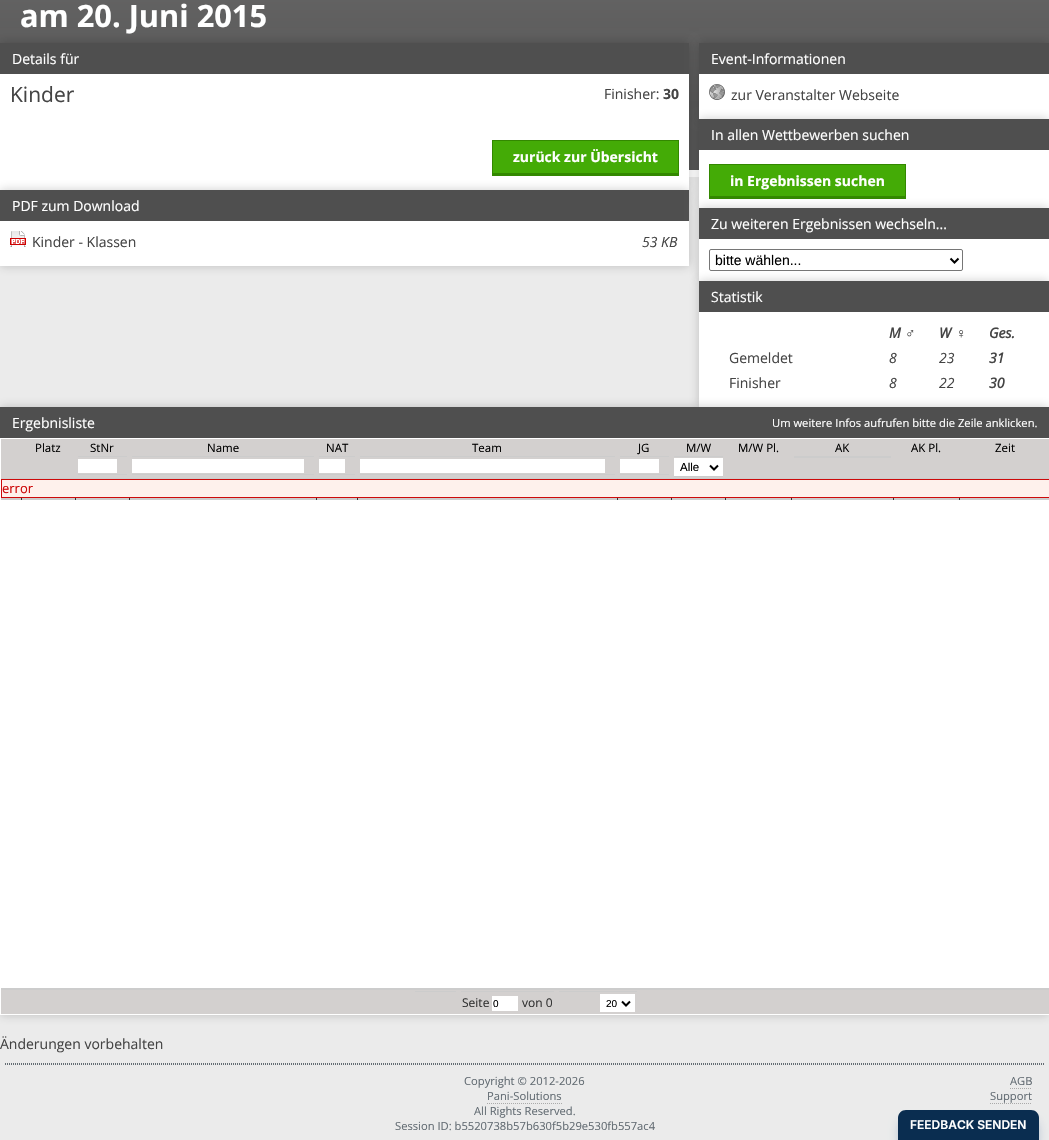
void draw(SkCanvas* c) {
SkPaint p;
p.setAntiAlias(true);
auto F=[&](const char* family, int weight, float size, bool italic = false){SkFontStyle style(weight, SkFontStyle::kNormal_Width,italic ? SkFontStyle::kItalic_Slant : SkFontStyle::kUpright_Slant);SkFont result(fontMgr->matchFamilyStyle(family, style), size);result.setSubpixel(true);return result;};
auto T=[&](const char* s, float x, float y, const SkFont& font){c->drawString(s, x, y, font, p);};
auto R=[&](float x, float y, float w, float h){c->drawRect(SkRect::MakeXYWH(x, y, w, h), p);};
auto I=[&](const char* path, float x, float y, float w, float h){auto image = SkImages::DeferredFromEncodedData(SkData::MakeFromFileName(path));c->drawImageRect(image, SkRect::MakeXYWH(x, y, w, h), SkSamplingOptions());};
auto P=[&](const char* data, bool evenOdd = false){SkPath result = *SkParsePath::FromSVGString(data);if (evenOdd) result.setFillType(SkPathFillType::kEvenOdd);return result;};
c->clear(0xffebebeb);
I("1.png",0,0,1049,177);
auto f1 = F("Open Sans",700,30.75);
p.setColor(0xffffffff);
T("am 20. Juni 2015",20,27,f1);
p.setColor(0x330a0a0a);
p.setMaskFilter(SkMaskFilter::MakeBlur(kNormal_SkBlurStyle, 5));
c->drawRect(SkRect::MakeXYWH(0,43,689,147),p);
p.setMaskFilter(nullptr);
p.setColor(0xffffffff);
R(0,74,689,116);
p.setColor(0xff4f4f4f);
R(0,43,689,31);
auto f2 = F("Open Sans",400,14);
p.setColor(0xffffffff);
T("Details für",12,64,f2);
auto f3 = F("Open Sans",400,21);
p.setColor(0xff444444);
T("Kinder",10,102,f3);
T("Finisher:",604,99,f2);
auto f4 = F("Open Sans",700,14);
T("30",663,99,f4);
p.setColor(0xff338800);
R(492,174,187,2);
p.setColor(0xff44ab06);
c->drawRect(SkRect::MakeXYWH(492.5,140.5,186,33),p);
p.setStroke(true);
p.setStrokeWidth(1);
p.setColor(0xff338800);
c->drawRect(SkRect::MakeXYWH(492.5,140.5,186,33),p);
p.setStroke(false);
p.setColor(0xffffffff);
T("zurück zur Übersicht",513,162,f4);
p.setColor(0x330a0a0a);
p.setMaskFilter(SkMaskFilter::MakeBlur(kNormal_SkBlurStyle, 5));
c->drawRect(SkRect::MakeXYWH(0,190,689,76),p);
p.setMaskFilter(nullptr);
p.setColor(0xffffffff);
R(0,221,689,45);
p.setColor(0xff4f4f4f);
R(0,190,689,31);
p.setColor(0xffffffff);
T("PDF zum Download",12,211,f2);
I("2.png",10,231,16,16);
p.setColor(0xff444444);
T("Kinder - Klassen",32,247,f2);
auto f5 = F("Open Sans",400,14,true);
T("53 KB",642,247,f5);
p.setColor(0x330a0a0a);
p.setMaskFilter(SkMaskFilter::MakeBlur(kNormal_SkBlurStyle, 5));
c->drawRect(SkRect::MakeXYWH(699,43,350,76),p);
p.setMaskFilter(nullptr);
p.setColor(0xffffffff);
R(699,74,350,45);
p.setColor(0xff4f4f4f);
R(699,43,350,31);
p.setColor(0xffffffff);
T("Event-Informationen",711,64,f2);
I("3.png",709,84,16,16);
p.setColor(0xff444444);
T("zur Veranstalter Webseite",731,100,f2);
p.setColor(0x330a0a0a);
p.setMaskFilter(SkMaskFilter::MakeBlur(kNormal_SkBlurStyle, 5));
c->drawRect(SkRect::MakeXYWH(699,119,350,89),p);
p.setMaskFilter(nullptr);
p.setColor(0xffffffff);
R(699,150,350,58);
p.setColor(0xff4f4f4f);
R(700,119,348,31);
p.setColor(0xffffffff);
T("In allen Wettbewerben suchen",711,140,f2);
p.setColor(0xff338800);
R(709,197,197,2);
p.setColor(0xff44ab06);
c->drawRect(SkRect::MakeXYWH(709.5,164.5,196,32),p);
p.setStroke(true);
p.setColor(0xff338800);
c->drawRect(SkRect::MakeXYWH(709.5,164.5,196,32),p);
p.setStroke(false);
p.setColor(0xffffffff);
T("in Ergebnissen suchen",730,186,f4);
p.setColor(0x330a0a0a);
p.setMaskFilter(SkMaskFilter::MakeBlur(kNormal_SkBlurStyle, 5));
c->drawRect(SkRect::MakeXYWH(699,208,350,73),p);
p.setMaskFilter(nullptr);
p.setColor(0xffffffff);
R(699,239,350,42);
p.setColor(0xff4f4f4f);
R(699,208,350,31);
p.setColor(0xffffffff);
T("Zu weiteren Ergebnissen wechseln...",711,229,f2);
p.setStroke(true);
p.setColor(0xff767676);
c->drawRoundRect(SkRect::MakeXYWH(709.5,249.5,253,21),1.5,1.5,p);
p.setStrokeWidth(2);
p.setColor(0xff000000);
c->drawPath(P("M950.5 258.5l4 4l4-4"),p);
auto f6 = F("Liberation Sans",400,14);
p.setStroke(false);
T("bitte wählen...",715,265,f6);
p.setColor(0x330a0a0a);
p.setMaskFilter(SkMaskFilter::MakeBlur(kNormal_SkBlurStyle, 5));
c->drawRect(SkRect::MakeXYWH(699,281,350,126),p);
p.setMaskFilter(nullptr);
p.setColor(0xffffffff);
R(699,312,350,95);
p.setColor(0xff4f4f4f);
R(699,281,350,31);
p.setColor(0xffffffff);
T("Statistik",711,302,f2);
auto f7 = F("Open Sans",700,14,true);
p.setColor(0xff444444);
T("M",889,338,f7);
auto f8 = F("Liberation Sans",700,14,true);
T("♂",904,338,f8);
T("W",939,338,f7);
T("♀",955,338,f8);
T("Ges.",989,338,f7);
T("Gemeldet",729,363,f2);
T("8",889,363,f5);
T("23",939,363,f5);
T("31",989,363,f7);
T("Finisher",729,388,f2);
T("8",889,388,f5);
T("22",939,388,f5);
T("30",989,388,f7);
p.setColor(0x330a0a0a);
p.setMaskFilter(SkMaskFilter::MakeBlur(kNormal_SkBlurStyle, 5));
c->drawRect(SkRect::MakeXYWH(0,407,1049,608),p);
p.setMaskFilter(nullptr);
p.setColor(0xffffffff);
R(0,438,1049,577);
p.setColor(0xff4f4f4f);
R(0,407,1049,31);
p.setColor(0xffffffff);
T("Ergebnisliste",12,428,f2);
auto f9 = F("Open Sans",400,11.2);
T("Um weitere Infos aufrufen bitte die Zeile anklicken.",772,427,f9);
p.setColor(0xffd3d0cf);
R(960,439,89,17);
p.setColor(0xffcccccc);
R(1,478,1048,1);
p.setColor(0xffd3d0cf);
R(1,439,959,17);
auto f10 = F("Open Sans",400,11.5);
p.setColor(0xff000000);
T("Platz",35,452,f10);
T("StNr",90,452,f10);
T("Name",207,452,f10);
T("NAT",326,452,f10);
T("Team",472,452,f10);
T("JG",638,452,f10);
T("M/W",686,452,f10);
T("M/W Pl.",738,452,f10);
T("AK",835,452,f10);
T("AK Pl.",911,452,f10);
T("Zeit",995,452,f10);
p.setColor(0xffd3d0cf);
R(1,456,1048,22);
p.setColor(0xffcccccc);
R(78,474,49,1);
R(78,456,49,1);
p.setColor(0xffffffff);
R(78,459,39,14);
p.setColor(0xffcccccc);
R(132,474,182,1);
R(132,456,182,1);
p.setColor(0xffffffff);
R(132,459,172,14);
p.setColor(0xffcccccc);
R(319,474,36,1);
R(319,456,36,1);
p.setColor(0xffffffff);
R(319,459,26,14);
p.setColor(0xffcccccc);
R(360,474,255,1);
R(360,456,255,1);
p.setColor(0xffffffff);
R(360,459,245,14);
p.setColor(0xffcccccc);
R(620,474,49,1);
R(620,456,49,1);
p.setColor(0xffffffff);
R(620,459,39,14);
p.setColor(0xffcccccc);
R(794,456,97,2);
R(674,476,49,1);
R(674,456,49,1);
p.setColor(0xffffffff);
R(674,458,49,18);
p.setStroke(true);
p.setColor(0xff000000);
c->drawPath(P("M710 465.5l4 4l4-4"),p);
auto f11 = F("Liberation Sans",400,11.5);
p.setStroke(false);
T("Alle",680,471,f11);
p.setColor(0xfffef1ec);
c->drawRect(SkRect::MakeXYWH(1.5,479.5,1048,18),p);
p.setStroke(true);
p.setStrokeWidth(1);
p.setColor(0xffcd0a0a);
c->drawRect(SkRect::MakeXYWH(1.5,479.5,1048,18),p);
auto f12 = F("Open Sans",400,13);
p.setStroke(false);
T("error",2,493,f12);
p.setColor(0xffcccccc);
R(1,499,1048,1);
R(1,498,1048,1);
p.setColor(0xff333333);
R(21,498,1,2);
R(75,498,1,2);
R(129,498,1,2);
R(316,498,1,2);
R(357,498,1,2);
R(617,498,1,2);
R(671,498,1,2);
R(725,498,1,2);
R(791,498,1,2);
R(893,498,1,2);
R(959,498,1,2);
p.setColor(0xffd3d0cf);
R(1,990,1048,24);
p.setColor(0xffcccccc);
R(1,988,1048,1);
R(1,989,1048,1);
R(415,991,41,1);
R(461,991,93,1);
auto f13 = F("Open Sans",400,12);
p.setColor(0xff333333);
T("Seite",462,1007,f13);
p.setColor(0xffffffff);
R(492,996,26,15);
auto f14 = F("Liberation Sans",400,10);
p.setColor(0xff000000);
T("0",493,1007,f14);
p.setColor(0xff333333);
T("von 0",522,1007,f13);
p.setColor(0xffcccccc);
R(559,991,78,1);
p.setColor(0xffffffff);
R(600,994,35,18);
p.setStroke(true);
p.setStrokeWidth(2);
p.setColor(0xff000000);
c->drawPath(P("M622 1001.5l4 4l4-4"),p);
p.setStroke(false);
T("20",606,1007,f14);
p.setColor(0xff444444);
T("Änderungen vorbehalten",0,1049,f2);
p.setStroke(true);
p.setStrokeWidth(1);
p.setColor(0xff636c73);
p.setPathEffect(SkDashPathEffect::Make({{1,1}}, 0));
c->drawPath(P("M5 1063.5h1039"),p);
p.setPathEffect(nullptr);
p.setStroke(false);
R(1043,1063,1,2);
p.setStroke(true);
p.setPathEffect(SkDashPathEffect::Make({{1,1}}, 0));
c->drawPath(P("M5 1064.5h1039"),p);
p.setPathEffect(nullptr);
p.setStroke(false);
T("Copyright © 2012-2026",464,1085,f9);
T("Pani-Solutions",487,1100,f9);
p.setStroke(true);
p.setColor(0xffaaaaaa);
p.setPathEffect(SkDashPathEffect::Make({{1,1}}, 0));
c->drawPath(P("M487 1103.5h75"),p);
p.setPathEffect(nullptr);
p.setStroke(false);
p.setColor(0xff636c73);
T("All Rights Reserved.",474,1115,f9);
T("Session ID: b5520738b57b630f5b29e530fb557ac4",395,1130,f9);
T("AGB",1010,1085,f9);
p.setStroke(true);
p.setColor(0xffaaaaaa);
p.setPathEffect(SkDashPathEffect::Make({{1,1}}, 0));
c->drawPath(P("M1010 1088.5h22"),p);
p.setPathEffect(nullptr);
p.setStroke(false);
p.setColor(0xff636c73);
T("Support",990,1100,f9);
p.setStroke(true);
p.setColor(0xffaaaaaa);
p.setPathEffect(SkDashPathEffect::Make({{1,1}}, 0));
c->drawPath(P("M990 1103.5h42"),p);
p.setPathEffect(nullptr);
p.setStroke(false);
p.setColor(0x33003980);
p.setMaskFilter(SkMaskFilter::MakeBlur(kNormal_SkBlurStyle, 5));
c->drawRoundRect(SkRect::MakeXYWH(898,1120,141,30),8,8,p);
p.setMaskFilter(nullptr);
p.setColor(0xff0a2d50);
c->drawPath(P("M906 1110h125c4.5 0 8 3.5 8 8v22h-141v-22c0-4.5 3.5-8 8-8z"),p);
auto f15 = F("Inter",600,12);
p.setColor(0xffffffff);
T("FEEDBACK SENDEN",910,1129,f15);
}
